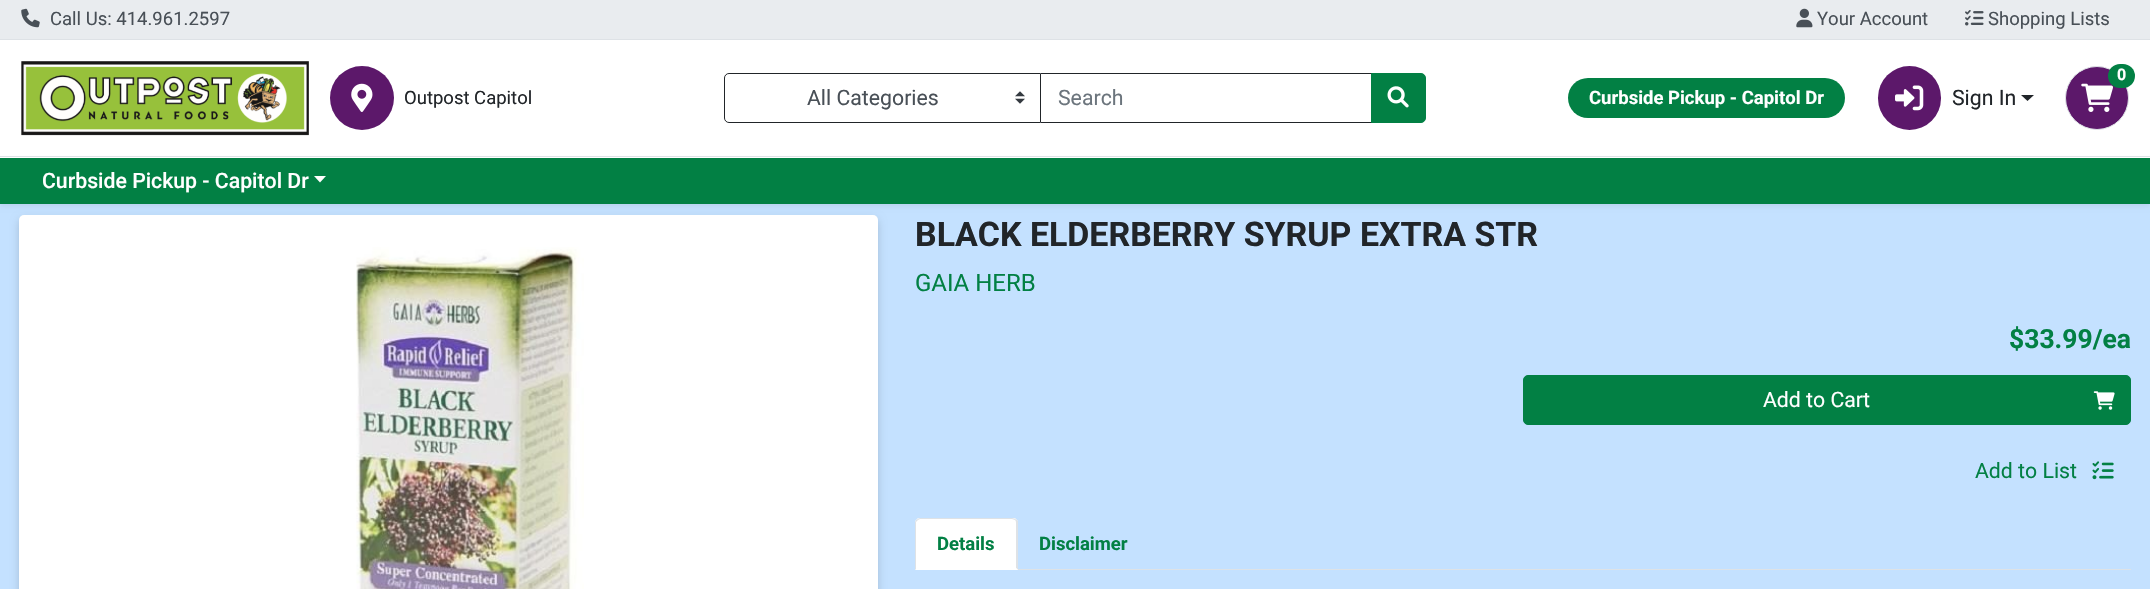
void draw(SkCanvas* c) {
SkPaint p;
p.setAntiAlias(true);
auto F=[&](const char* family, int weight, float size, bool italic = false){SkFontStyle style(weight, SkFontStyle::kNormal_Width,italic ? SkFontStyle::kItalic_Slant : SkFontStyle::kUpright_Slant);SkFont result(fontMgr->matchFamilyStyle(family, style), size);result.setSubpixel(true);return result;};
auto T=[&](const char* s, float x, float y, const SkFont& font){c->drawString(s, x, y, font, p);};
auto R=[&](float x, float y, float w, float h){c->drawRect(SkRect::MakeXYWH(x, y, w, h), p);};
auto Q=[&](float x, float y, float w, float h, float radius){c->drawRoundRect(SkRect::MakeXYWH(x, y, w, h), radius, radius, p);};
auto I=[&](const char* path, float x, float y, float w, float h){auto image = SkImages::DeferredFromEncodedData(SkData::MakeFromFileName(path));c->drawImageRect(image, SkRect::MakeXYWH(x, y, w, h), SkSamplingOptions());};
auto P=[&](const char* data, bool evenOdd = false){SkPath result = *SkParsePath::FromSVGString(data);if (evenOdd) result.setFillType(SkPathFillType::kEvenOdd);return result;};
c->clear(0xffc4e1ff);
p.setColor(0x12000000);
p.setMaskFilter(SkMaskFilter::MakeBlur(kNormal_SkBlurStyle, 2.5));
c->drawRect(SkRect::MakeXYWH(0,3,2150,203),p);
p.setMaskFilter(nullptr);
p.setColor(0xffffffff);
R(0,40,2150,118);
p.setColor(0xffe9ecef);
R(0,0,2150,39);
p.setColor(0xffdee2e6);
R(0,39,2150,1);
I("1.png",21,8,19,20);
auto f1 = F("Roboto",400,18.5);
p.setColor(0xff495057);
T("Call Us: 414.961.2597",50,25,f1);
I("2.png",1796,8,17,20);
T("Your Account",1817,25,f1);
I("3.png",1965,10,19,16);
T("Shopping Lists",1988,25,f1);
p.setColor(0xffdee2e6);
R(0,156,2150,1);
I("4.png",21,61,288,75);
p.setColor(0xff5c186a);
c->drawCircle(362,98,32,p);
I("5.png",351,83,22,29);
p.setColor(0xff212529);
T("Outpost Capitol",404,104,f1);
p.setStroke(true);
p.setStrokeWidth(1);
c->drawRect(SkRect::MakeXYWH(1040.5,73.5,332,49),p);
p.setStroke(false);
p.setColor(0xffffffff);
c->drawPath(P("M729 73h312v50h-312c-3 0-5-2-5-5v-40c0-3 2-5 5-5z"),p);
I("6.png",1015,91,10,13);
p.setStroke(true);
p.setColor(0xff212529);
c->drawPath(P("M729 73.5h311.5v49h-311.5c-2.5 0-4.5-2-4.5-4.5v-40c0-2.5 2-4.5 4.5-4.5z"),p);
auto f2 = F("Roboto",400,21.25);
p.setStroke(false);
p.setColor(0xff495057);
T("All Categories",807,105,f2);
p.setColor(0xff6c757d);
T("Search",1058,105,f2);
p.setColor(0xff028044);
c->drawPath(P("M1371.5 73.5h49.5c2.5 0 4.5 2 4.5 4.5v40c0 2.5-2 4.5-4.5 4.5h-49.5z"),p);
p.setStroke(true);
c->drawPath(P("M1371.5 73.5h49.5c2.5 0 4.5 2 4.5 4.5v40c0 2.5-2 4.5-4.5 4.5h-49.5z"),p);
I("7.png",1387,86,22,22);
p.setStroke(false);
Q(1568,78,277,40,20);
auto f3 = F("Roboto",700,18.5);
p.setColor(0xffffffff);
T("Curbside Pickup - Capitol Dr",1589,104,f3);
p.setColor(0xff5c186a);
c->drawCircle(2097,98,31.5,p);
p.setStroke(true);
p.setColor(0xffdee2e6);
c->drawCircle(2097,98,31.5,p);
I("8.png",2081,83,32,29);
p.setStroke(false);
p.setColor(0xff028044);
Q(2108,64,27,24,12);
auto f4 = F("Roboto",700,16);
p.setColor(0xffffffff);
T("0",2117,80,f4);
p.setColor(0xff5c186a);
Q(1878,66,63,64,31.5);
I("9.png",1895,85,29,26);
p.setColor(0xff212529);
T("Sign In",1952,105,f2);
c->drawPath(P("M2021 95h13l-6.5 6z"),p);
p.setColor(0xff028044);
R(0,158,2150,46);
auto f5 = F("Roboto",500,21.25);
p.setColor(0xffffffff);
T("Curbside Pickup - Capitol Dr",42,188,f5);
c->drawPath(P("M314 176h12l-6 6.5z"),p);
p.setColor(0x29000000);
p.setMaskFilter(SkMaskFilter::MakeBlur(kNormal_SkBlurStyle, 4));
c->drawRoundRect(SkRect::MakeXYWH(19,219,859,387),5,5,p);
p.setMaskFilter(nullptr);
p.setColor(0xffffffff);
Q(19,215,859,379,5);
I("10.png",356,247,228,342);
auto f6 = F("Roboto",700,33.9);
p.setColor(0xff212529);
T("BLACK ELDERBERRY SYRUP EXTRA STR",915,246,f6);
auto f7 = F("Roboto",400,24);
p.setColor(0xff028044);
T("GAIA HERB",915,291,f7);
auto f8 = F("Roboto",700,26.5);
T("$33.99/ea",2009,348,f8);
c->drawRoundRect(SkRect::MakeXYWH(1523.5,375.5,607,49),4.5,4.5,p);
p.setStroke(true);
c->drawRoundRect(SkRect::MakeXYWH(1523.5,375.5,607,49),4.5,4.5,p);
p.setStroke(false);
p.setColor(0xffffffff);
T("Add to Cart",1763,407,f2);
I("11.png",2093,391,22,19);
p.setColor(0xff028044);
T("Add to List",1975,478,f2);
I("12.png",2092,461,22,19);
p.setColor(0xffdee2e6);
R(1018,569,1113,1);
p.setColor(0xffffffff);
c->drawPath(P("M920 518h93c3 0 5 2 5 5v47h-103v-47c0-3 2-5 5-5z"),p);
p.setColor(0xffdee2e6);
c->drawPath(P("M920 518l-3 1l1 1l2-1h92l3 1l1-1l-4-1z"),p);
c->drawPath(P("M1016 519l2 2v49l-2-2v-45c0-1 0-2-1-3z"),p);
p.setColor(0xffffffff);
c->drawPath(P("M1018 570l-2-2v1h-100l-1 1z"),p);
p.setColor(0xffdee2e6);
c->drawPath(P("M915 570l1-1v-47l2-2l-1-1c-1 1-2 2-2 4z"),p);
p.setColor(0xff028044);
T("Details",937,550,f3);
T("Disclaimer",1039,550,f3);
}
